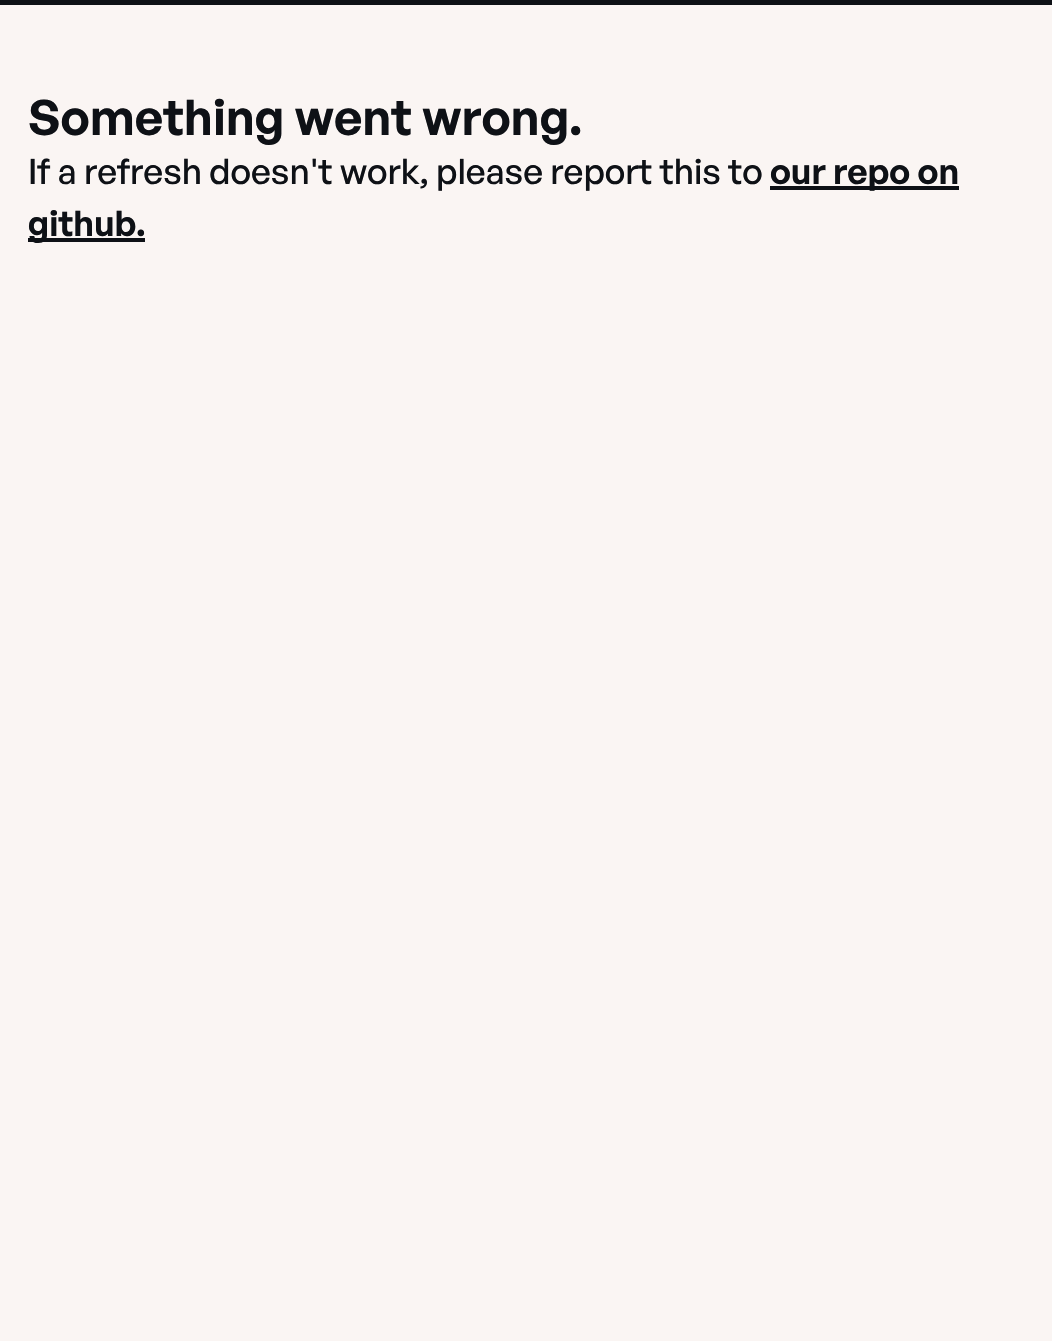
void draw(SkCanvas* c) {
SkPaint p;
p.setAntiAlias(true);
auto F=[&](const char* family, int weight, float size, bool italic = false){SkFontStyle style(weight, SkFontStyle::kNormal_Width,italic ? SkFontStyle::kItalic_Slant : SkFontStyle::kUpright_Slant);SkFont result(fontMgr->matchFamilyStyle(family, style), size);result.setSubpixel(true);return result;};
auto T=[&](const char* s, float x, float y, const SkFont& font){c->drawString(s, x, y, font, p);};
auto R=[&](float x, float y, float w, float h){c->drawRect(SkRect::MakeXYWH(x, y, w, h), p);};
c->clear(0xfffaf5f3);
p.setColor(0xff0e1116);
R(0,0,1052,5);
auto f1 = F("General Sans",600,49);
T("Something went wrong.",28,135,f1);
auto f2 = F("General Sans",500,35);
T("If a refresh doesn't work, please report this to",28,184,f2);
R(770,186,189,4);
auto f3 = F("General Sans",600,35);
T("our repo on",770,184,f3);
R(28,238,117,4);
T("github.",28,236,f3);
}
